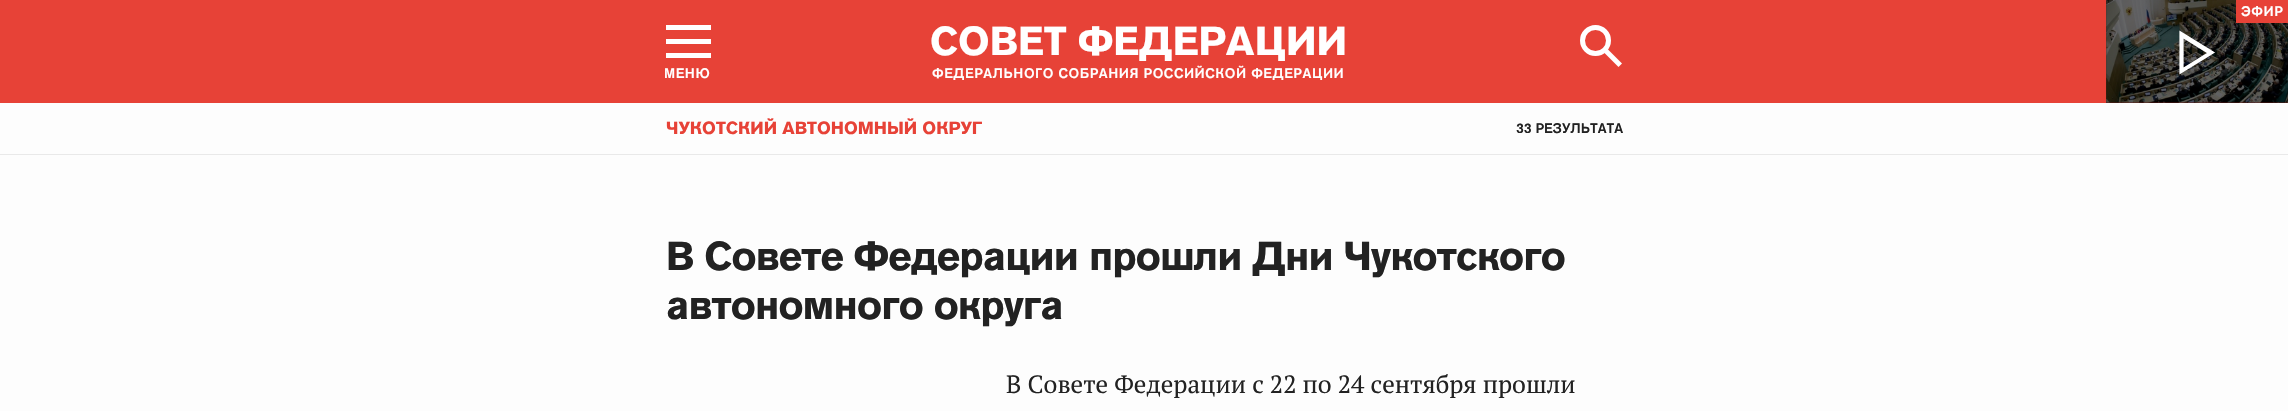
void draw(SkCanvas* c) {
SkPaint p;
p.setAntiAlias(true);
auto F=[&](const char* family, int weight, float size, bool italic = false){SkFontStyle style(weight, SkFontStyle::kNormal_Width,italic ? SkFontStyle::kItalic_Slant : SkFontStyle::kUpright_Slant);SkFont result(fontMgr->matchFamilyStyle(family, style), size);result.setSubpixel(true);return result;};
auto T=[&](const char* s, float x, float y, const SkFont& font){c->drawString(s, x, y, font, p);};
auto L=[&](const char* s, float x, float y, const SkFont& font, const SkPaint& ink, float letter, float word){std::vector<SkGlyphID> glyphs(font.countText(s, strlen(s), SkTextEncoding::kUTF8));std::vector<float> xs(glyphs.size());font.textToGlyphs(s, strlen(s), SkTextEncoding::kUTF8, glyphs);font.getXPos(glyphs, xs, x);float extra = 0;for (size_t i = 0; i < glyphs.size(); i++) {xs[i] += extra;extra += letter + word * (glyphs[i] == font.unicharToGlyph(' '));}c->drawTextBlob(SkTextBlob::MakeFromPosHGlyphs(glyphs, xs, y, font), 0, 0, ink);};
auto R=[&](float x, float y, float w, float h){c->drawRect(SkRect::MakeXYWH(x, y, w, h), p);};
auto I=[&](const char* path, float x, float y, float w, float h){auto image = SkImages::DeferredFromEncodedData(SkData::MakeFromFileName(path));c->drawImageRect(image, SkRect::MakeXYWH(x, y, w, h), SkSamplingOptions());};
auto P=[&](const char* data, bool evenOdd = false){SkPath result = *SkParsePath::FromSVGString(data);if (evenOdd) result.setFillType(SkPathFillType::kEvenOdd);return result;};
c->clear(0xfffdfdfd);
p.setColor(0xffe74237);
R(0,0,2106,103);
p.setColor(0xff5c1a16);
R(2106,0,182,103);
I("1.png",2106,0,182,103);
p.setColor(0xffe74237);
R(2236,0,52,23);
auto f1 = F("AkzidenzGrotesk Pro",500,13.75);
p.setColor(0xffffffff);
L("ЭФИР",2241,16,f1,p,.55,0);
c->drawPath(P("M2182.5 36.5l26.5 16.5l-26.5 16.5zm-2-4v40l32.5-20z",true),p);
p.setStroke(true);
p.setStrokeWidth(2.2);
c->drawPath(P("M2182.5 36.5l26.5 16.5l-26.5 16.5zm-2-4v40l32.5-20z",true),p);
auto f2 = F("AkzidenzGrotesk Pro",700,40);
p.setStroke(false);
T("СОВЕТ ФЕДЕРАЦИИ",930,55,f2);
L("ФЕДЕРАЛЬНОГО СОБРАНИЯ РОССИЙСКОЙ ФЕДЕРАЦИИ",932,78,f1,p,.55,0);
c->drawPath(P("M1591.5 33l30.5 30.5l-3.5 3.5l-30.5-30.5z"),p);
p.setColor(0xffe74237);
c->drawCircle(1595.5,40.5,13,p);
p.setStroke(true);
p.setStrokeWidth(5);
p.setColor(0xffffffff);
c->drawCircle(1595.5,40.5,13,p);
p.setStroke(false);
R(666,25,45,5);
R(666,39,45,5);
R(666,53,45,5);
L("МЕНЮ",664,78,f1,p,.55,0);
p.setColor(0xffe9e9e9);
R(0,154,2288,1);
auto f3 = F("AkzidenzGrotesk Pro",700,17.5);
p.setColor(0xffe74237);
T("ЧУКОТСКИЙ АВТОНОМНЫЙ ОКРУГ",666,134,f3);
p.setColor(0xff222222);
T("33 РЕЗУЛЬТАТА",1516,133,f1);
L("В Совете Федерации прошли Дни Чукотского",666,270,f2,p,-.85,0);
L("автономного округа",666,319,f2,p,-.85,0);
auto f4 = F("PT Serif",400,25);
T("В Совете Федерации с 22 по 24 сентября прошли",1006,393,f4);
}
